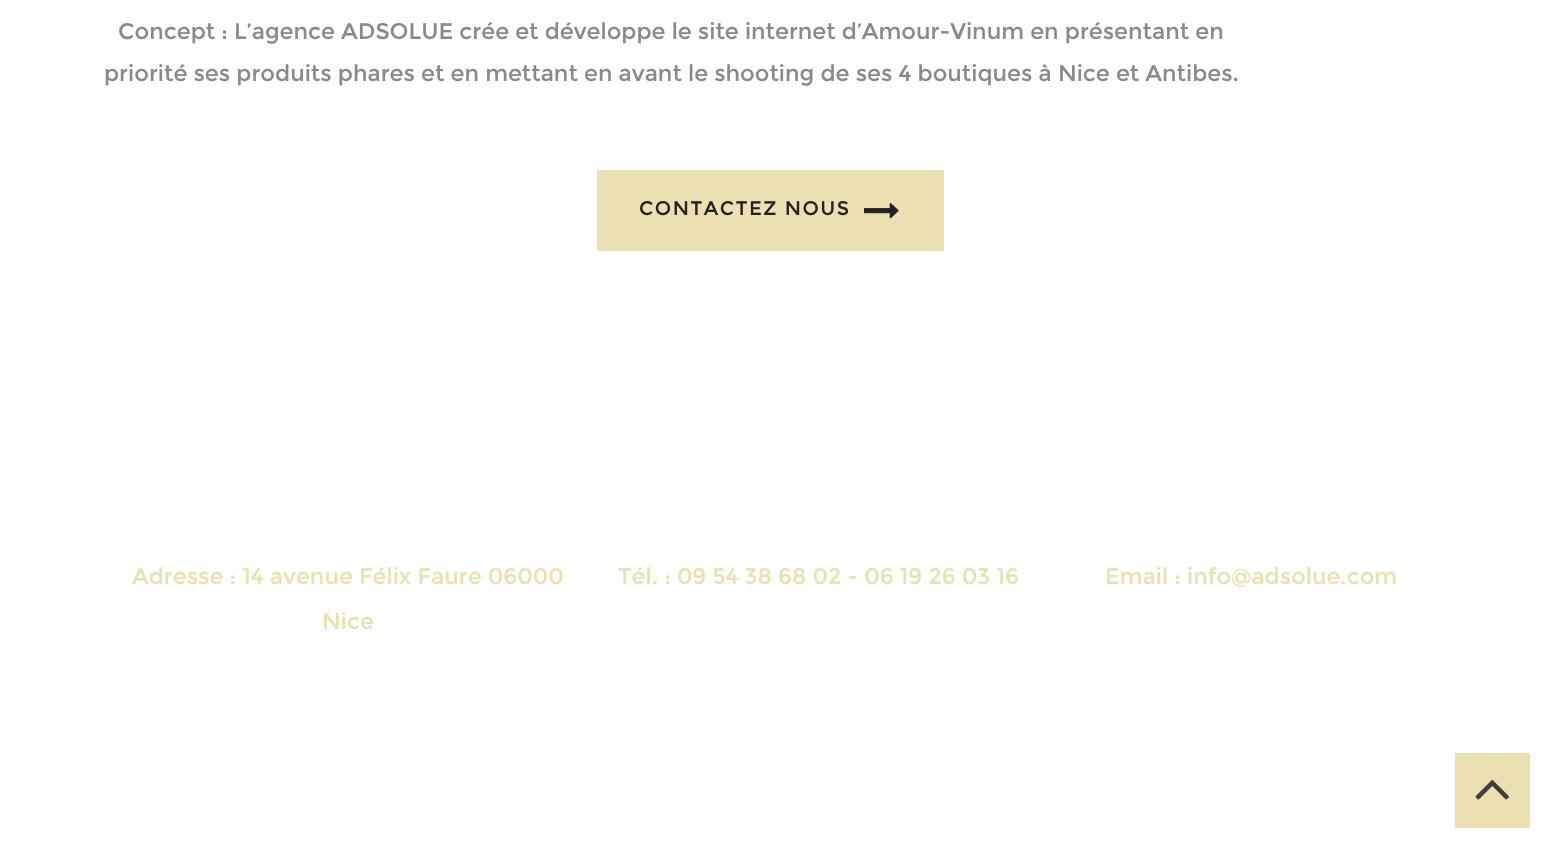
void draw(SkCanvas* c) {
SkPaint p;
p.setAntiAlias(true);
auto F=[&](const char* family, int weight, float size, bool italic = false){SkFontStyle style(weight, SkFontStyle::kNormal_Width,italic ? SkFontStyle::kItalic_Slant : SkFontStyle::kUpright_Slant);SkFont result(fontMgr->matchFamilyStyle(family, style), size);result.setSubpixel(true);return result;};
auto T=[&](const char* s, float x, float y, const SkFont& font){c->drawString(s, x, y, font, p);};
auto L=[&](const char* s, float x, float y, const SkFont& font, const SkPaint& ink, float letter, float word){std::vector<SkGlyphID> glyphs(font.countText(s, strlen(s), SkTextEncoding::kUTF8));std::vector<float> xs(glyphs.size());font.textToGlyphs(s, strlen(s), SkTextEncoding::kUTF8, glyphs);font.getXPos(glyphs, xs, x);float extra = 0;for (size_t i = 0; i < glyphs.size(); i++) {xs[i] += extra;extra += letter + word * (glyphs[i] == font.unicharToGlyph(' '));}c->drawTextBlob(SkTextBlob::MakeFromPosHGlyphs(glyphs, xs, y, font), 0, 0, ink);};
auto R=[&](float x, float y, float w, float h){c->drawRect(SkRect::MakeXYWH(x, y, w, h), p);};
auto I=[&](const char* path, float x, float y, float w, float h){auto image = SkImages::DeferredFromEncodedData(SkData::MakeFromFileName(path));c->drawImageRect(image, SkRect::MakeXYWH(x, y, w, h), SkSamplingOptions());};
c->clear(0xffffffff);
auto f1 = F("Montserrat",400,22.5);
p.setColor(0xff898989);
T("Concept : L’agence ADSOLUE crée et développe le site internet d’Amour-Vinum en présentant en",118,39,f1);
T("priorité ses produits phares et en mettant en avant le shooting de ses 4 boutiques à Nice et Antibes.",104,81,f1);
p.setColor(0xffebe0b2);
R(597,170,347,81);
auto f2 = F("Montserrat",400,19.5);
p.setColor(0xff242324);
L("CONTACTEZ NOUS",639,215,f2,p,1.5,0);
I("1.png",864,203,35,16);
p.setColor(0xffebe0b2);
T("Adresse : 14 avenue Félix Faure 06000",132,584,f1);
T("Nice",322,629,f1);
T("Tél. : 09 54 38 68 02 - 06 19 26 03 16",618,584,f1);
T("Email : info@adsolue.com",1105,584,f1);
R(1455,753,75,75);
I("2.png",1475,780,34,20);
}
